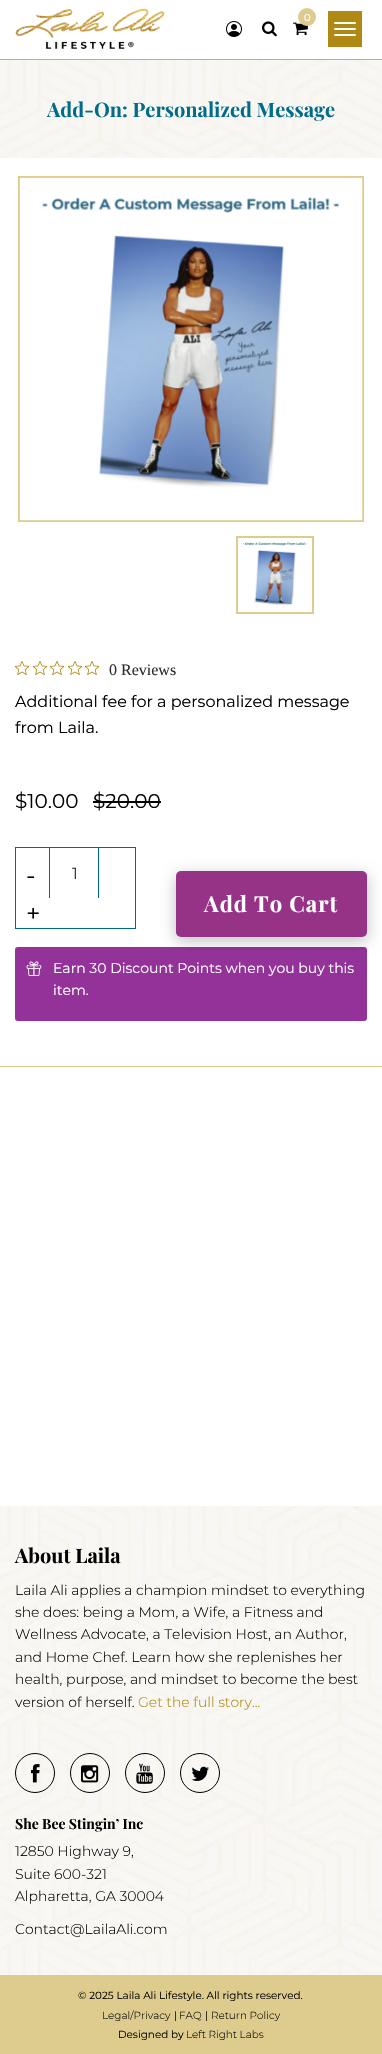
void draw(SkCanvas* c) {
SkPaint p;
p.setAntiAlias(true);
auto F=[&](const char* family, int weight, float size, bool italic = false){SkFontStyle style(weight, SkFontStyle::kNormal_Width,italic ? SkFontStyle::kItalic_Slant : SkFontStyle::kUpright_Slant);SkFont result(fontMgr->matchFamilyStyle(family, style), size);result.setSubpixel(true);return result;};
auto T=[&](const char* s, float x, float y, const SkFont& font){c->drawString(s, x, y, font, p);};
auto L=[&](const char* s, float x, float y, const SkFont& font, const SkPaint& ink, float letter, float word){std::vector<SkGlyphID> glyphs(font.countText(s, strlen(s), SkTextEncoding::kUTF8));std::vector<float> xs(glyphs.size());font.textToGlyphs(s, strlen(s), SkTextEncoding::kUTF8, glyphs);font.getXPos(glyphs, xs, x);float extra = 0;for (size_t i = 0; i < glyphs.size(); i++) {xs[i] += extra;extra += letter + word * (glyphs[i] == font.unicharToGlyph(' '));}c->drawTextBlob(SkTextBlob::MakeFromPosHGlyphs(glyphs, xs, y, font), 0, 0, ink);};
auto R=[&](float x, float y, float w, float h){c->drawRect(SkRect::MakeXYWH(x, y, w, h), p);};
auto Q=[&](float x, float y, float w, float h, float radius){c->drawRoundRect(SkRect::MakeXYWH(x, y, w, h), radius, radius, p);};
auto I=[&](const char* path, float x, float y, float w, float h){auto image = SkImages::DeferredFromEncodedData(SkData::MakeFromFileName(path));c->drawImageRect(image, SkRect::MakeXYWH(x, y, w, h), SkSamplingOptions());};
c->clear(0xffffffff);
p.setColor(0xffadadad);
R(0,59,382,1);
I("1.png",15,8,150,41);
I("2.png",293,22,15,14);
p.setColor(0xffdecc8f);
c->drawCircle(307,17,9,p);
auto f1 = F("Montserrat",400,10);
p.setColor(0xffffffff);
T("0",304,21,f1);
p.setColor(0xffaf8913);
R(328,11,34,36);
p.setColor(0xffffffff);
Q(334,22,22,2,1);
Q(334,28,22,2,1);
Q(334,34,22,2,1);
I("3.png",226,21,16,16);
I("4.png",262,21,15,16);
I("5.png",0,60,382,98);
auto f2 = F("Playfair Display",700,20);
p.setColor(0xff006c8a);
T("Add-On: Personalized Message",47,117,f2);
p.setColor(0xffdecc8f);
R(0,1066,382,1);
p.setStroke(true);
p.setStrokeWidth(2);
c->drawRect(SkRect::MakeXYWH(19,177,344,344),p);
I("6.png",19,177,344,344);
c->drawRect(SkRect::MakeXYWH(237,537,76,76),p);
I("7.png",243,542,65,63);
I("8.png",15,661,14,14);
I("8.png",33,661,14,14);
I("8.png",50,661,14,14);
I("8.png",68,661,14,14);
I("8.png",85,661,14,14);
auto f3 = F("Liberation Serif",400,16);
p.setStroke(false);
p.setColor(0xff2c2c2c);
T("0 Reviews",109,675,f3);
auto f4 = F("Montserrat",400,16);
p.setColor(0xff000000);
T("Additional fee for a personalized message",15,707,f4);
T("from Laila.",15,733,f4);
auto f5 = F("Montserrat",400,20);
T("$10.00",15,808,f5);
T("$20.00",93,808,f5);
R(93,801,68,2);
p.setStroke(true);
p.setStrokeWidth(1);
p.setColor(0xff006c8a);
c->drawRect(SkRect::MakeXYWH(15.5,847.5,120,81),p);
auto f6 = F("Montserrat",400,25);
p.setStroke(false);
p.setColor(0xff000000);
T("-",26,884,f6);
p.setColor(0xff006c8a);
R(98,848,1,50);
R(49,848,1,50);
p.setColor(0xff333333);
T("1",72,879,f4);
p.setColor(0xff000000);
T("+",26,922,f6);
p.setColor(0xff933399);
Q(15,947,352,74,3);
p.setColor(0x40000000);
p.setMaskFilter(SkMaskFilter::MakeBlur(kNormal_SkBlurStyle, 7.5));
c->drawRoundRect(SkRect::MakeXYWH(176,875,191,66),5,5,p);
p.setMaskFilter(nullptr);
p.setColor(0xff963387);
Q(176,871,191,66,5);
auto f7 = F("Playfair Display",700,22);
p.setColor(0xffffffff);
L("Add To Cart",204,912,f7,p,1,0);
I("9.png",26,961,16,15);
auto f8 = F("Montserrat",400,14);
T("Earn 30 Discount Points when you buy this",53,973,f8);
T("item.",53,995,f8);
I("10.png",0,1506,382,469);
p.setColor(0xff000000);
T("About Laila",15,1563,f2);
auto f9 = F("Montserrat",300,14);
T("Laila Ali applies a champion mindset to everything",15,1595,f9);
T("she does: being a Mom, a Wife, a Fitness and",15,1617,f9);
T("Wellness Advocate, a Television Host, an Author,",15,1639,f9);
T("and Home Chef. Learn how she replenishes her",15,1662,f9);
T("health, purpose, and mindset to become the best",15,1684,f9);
T("version of herself.",15,1707,f9);
p.setColor(0xffaf8913);
T("Get the full story...",138,1707,f9);
p.setStroke(true);
p.setColor(0xff000000);
c->drawCircle(35,1773,19.5,p);
I("11.png",31,1764,9,19);
c->drawCircle(90,1773,19.5,p);
I("12.png",81,1765,18,18);
c->drawCircle(145,1773,19.5,p);
I("13.png",136,1763,17,21);
c->drawCircle(200,1773,19.5,p);
I("14.png",191,1766,18,15);
auto f10 = F("Playfair Display",700,14);
p.setStroke(false);
T("She Bee Stingin’ Inc",15,1829,f10);
T("12850 Highway 9,",15,1856,f9);
T("Suite 600-321",15,1879,f9);
T("Alpharetta, GA 30004",15,1901,f9);
T("Contact@LailaAli.com",15,1934,f9);
p.setColor(0xffdecc8f);
R(0,1975,382,79);
auto f11 = F("Montserrat",400,10.4);
p.setColor(0xff000000);
T("© 2025 Laila Ali Lifestyle. All rights reserved.",78,1999,f11);
auto f12 = F("Montserrat",300,10.4);
T("Legal/Privacy",102,2019,f12);
T("|",174,2019,f11);
T("FAQ",179,2019,f12);
T("|",205,2019,f11);
T("Return Policy",211,2019,f12);
T("Designed by",118,2038,f11);
T("Left Right Labs",186,2038,f12);
}
